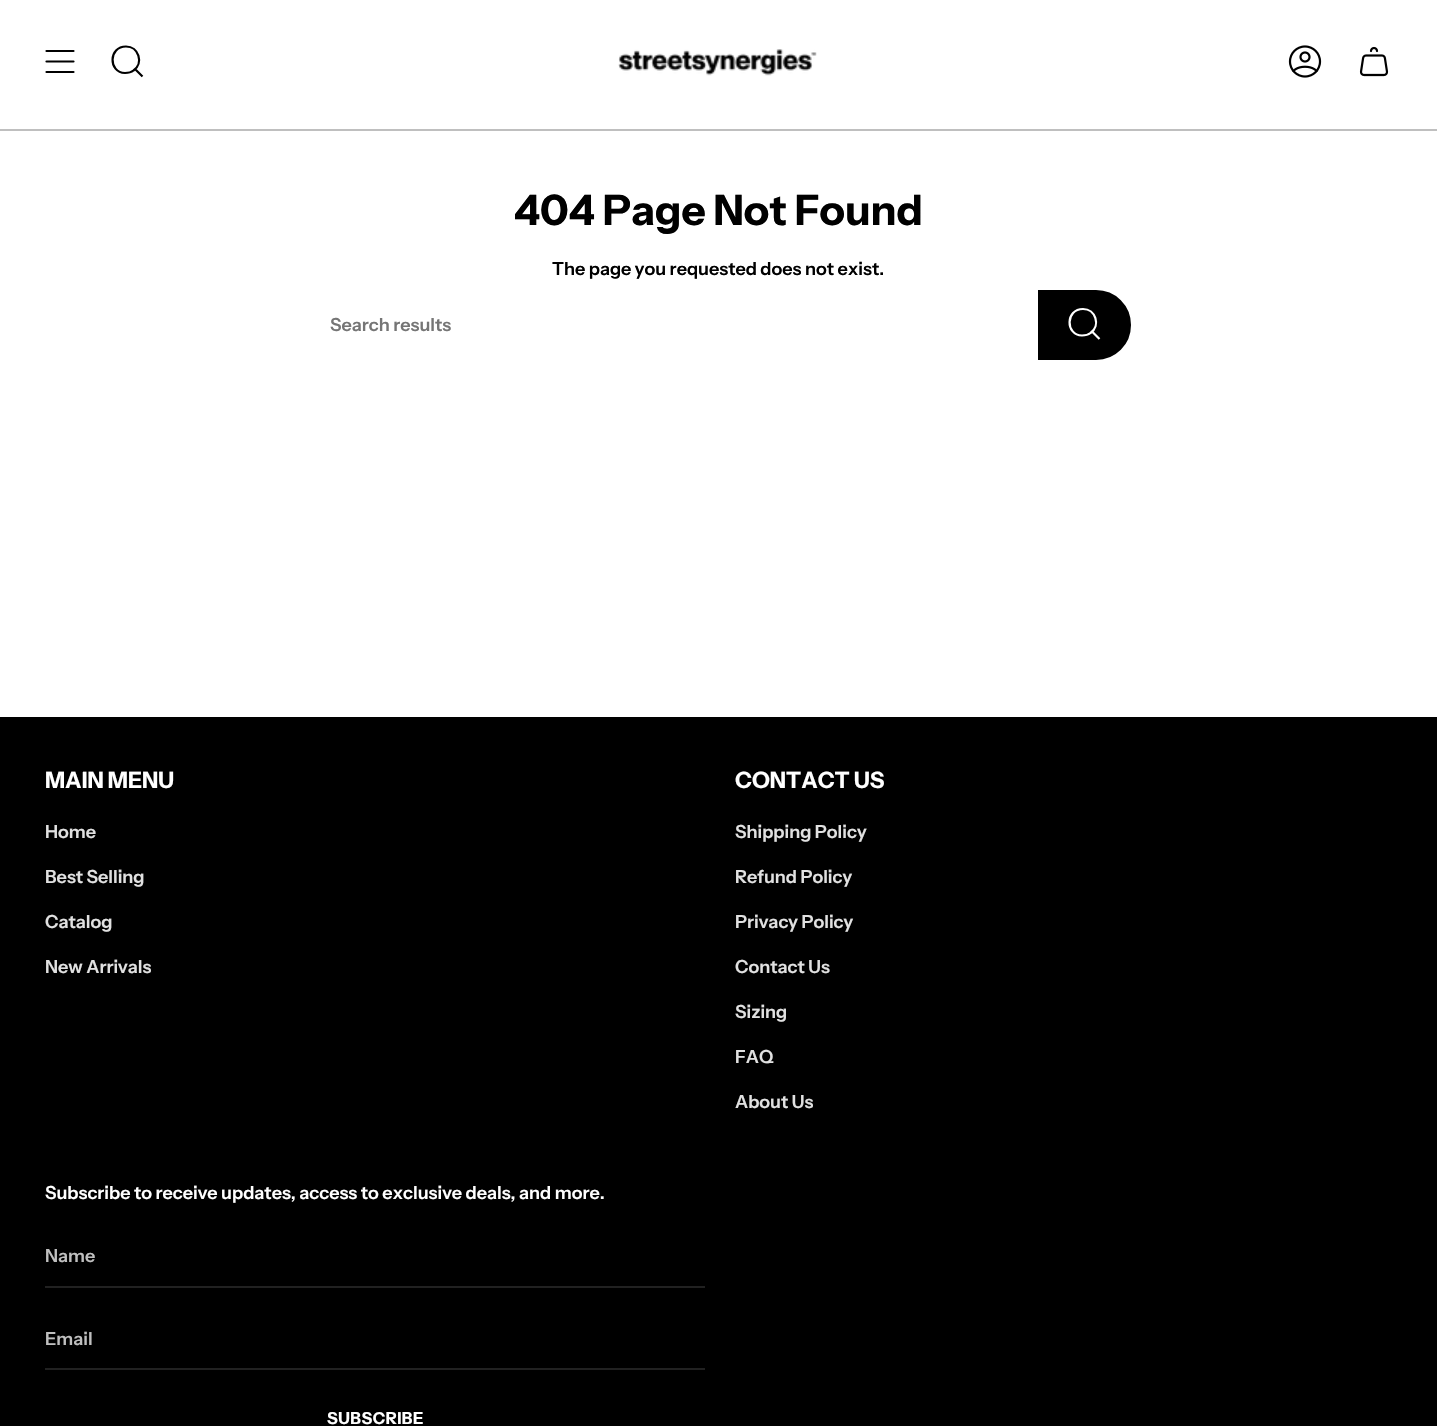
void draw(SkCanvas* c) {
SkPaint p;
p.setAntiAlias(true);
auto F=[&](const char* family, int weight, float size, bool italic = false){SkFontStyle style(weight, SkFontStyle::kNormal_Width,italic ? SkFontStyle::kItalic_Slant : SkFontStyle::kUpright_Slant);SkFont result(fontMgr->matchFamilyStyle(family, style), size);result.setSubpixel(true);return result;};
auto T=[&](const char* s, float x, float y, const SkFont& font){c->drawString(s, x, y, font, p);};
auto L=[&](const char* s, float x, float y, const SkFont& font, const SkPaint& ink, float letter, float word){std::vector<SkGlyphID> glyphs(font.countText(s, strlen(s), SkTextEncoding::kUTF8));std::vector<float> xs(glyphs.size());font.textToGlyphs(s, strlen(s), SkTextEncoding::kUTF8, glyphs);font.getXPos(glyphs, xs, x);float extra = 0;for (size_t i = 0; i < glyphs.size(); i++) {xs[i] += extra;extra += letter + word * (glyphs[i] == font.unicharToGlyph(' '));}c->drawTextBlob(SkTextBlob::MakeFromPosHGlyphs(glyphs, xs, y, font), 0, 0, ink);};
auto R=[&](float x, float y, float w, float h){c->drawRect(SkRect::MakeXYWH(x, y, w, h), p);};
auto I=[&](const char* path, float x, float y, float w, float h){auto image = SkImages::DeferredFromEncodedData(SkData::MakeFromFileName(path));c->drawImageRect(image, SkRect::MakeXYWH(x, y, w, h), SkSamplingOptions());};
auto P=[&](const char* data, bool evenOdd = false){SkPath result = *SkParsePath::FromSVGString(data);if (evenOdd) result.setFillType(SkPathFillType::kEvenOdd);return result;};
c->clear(0xffffffff);
p.setStroke(true);
p.setStrokeWidth(2.2);
p.setStrokeCap(SkPaint::kRound_Cap);
p.setStrokeJoin(SkPaint::kRound_Join);
p.setColor(0xff000000);
c->drawPath(P("M46.5 51h27m-27 10.5h27m-27 10.5h27"),p);
p.setStrokeCap(SkPaint::kButt_Cap);
p.setStrokeJoin(SkPaint::kMiter_Join);
c->drawPath(P("M126 46.5c12.5 0 18 16.5 7.5 24c-2.5 2-5.5 2.5-8.5 2.5c-17-.5-16.5-26.5 1-26.5zm9 22.5l7.5 7.5"),p);
I("1.png",618,49,199,27);
I("2.png",1288,45,34,33);
I("3.png",1359,46,30,31);
p.setStroke(false);
p.setColor(0xffbfbfbf);
R(0,129,1437,2);
auto f1 = F("Instrument Sans",700,42);
p.setColor(0xff000000);
T("404 Page Not Found",514,225,f1);
auto f2 = F("Instrument Sans",600,18);
T("The page you requested does not exist.",552,275,f2);
p.setColor(0xff757575);
T("Search results",330,331,f2);
p.setColor(0xff000000);
c->drawPath(P("M1039 291h57c19 0 34 15 34 34c0 19-15 34-34 34h-57z"),p);
p.setStroke(true);
p.setStrokeWidth(2);
c->drawPath(P("M1039 291h57c19 0 34 15 34 34c0 19-15 34-34 34h-57z"),p);
p.setStrokeWidth(2.2);
p.setColor(0xffffffff);
c->drawPath(P("M1083 309c12.5 0 18 16.5 7.5 24c-2.5 2-5.5 2.5-8.5 2.5c-17-.5-16.5-26.5 1-26.5zm9 22.5l7.5 7.5"),p);
p.setStroke(false);
p.setColor(0xff000000);
R(0,717,1437,709);
auto f3 = F("Instrument Sans",700,22.5);
p.setColor(0xffffffff);
T("MAIN MENU",45,788,f3);
p.setColor(0xffe1e1e1);
T("Home",45,838,f2);
T("Best Selling",45,883,f2);
T("Catalog",45,928,f2);
T("New Arrivals",45,973,f2);
p.setColor(0xffffffff);
T("CONTACT US",735,788,f3);
p.setColor(0xffe1e1e1);
T("Shipping Policy",735,838,f2);
T("Refund Policy",735,883,f2);
T("Privacy Policy",735,928,f2);
T("Contact Us",735,973,f2);
T("Sizing",735,1018,f2);
T("FAQ",735,1063,f2);
T("About Us",735,1108,f2);
p.setColor(0xffffffff);
T("Subscribe to receive updates, access to exclusive deals, and more.",45,1199,f2);
p.setColor(0xff212121);
R(45,1286,660,2);
p.setColor(0xffbfbfbf);
T("Name",45,1262,f2);
p.setColor(0xff212121);
R(45,1368,660,2);
p.setColor(0xffbfbfbf);
T("Email",45,1345,f2);
auto f4 = F("Instrument Sans",700,16.5);
p.setColor(0xffffffff);
L("SUBSCRIBE",327,1424,f4,p,.5,0);
}
